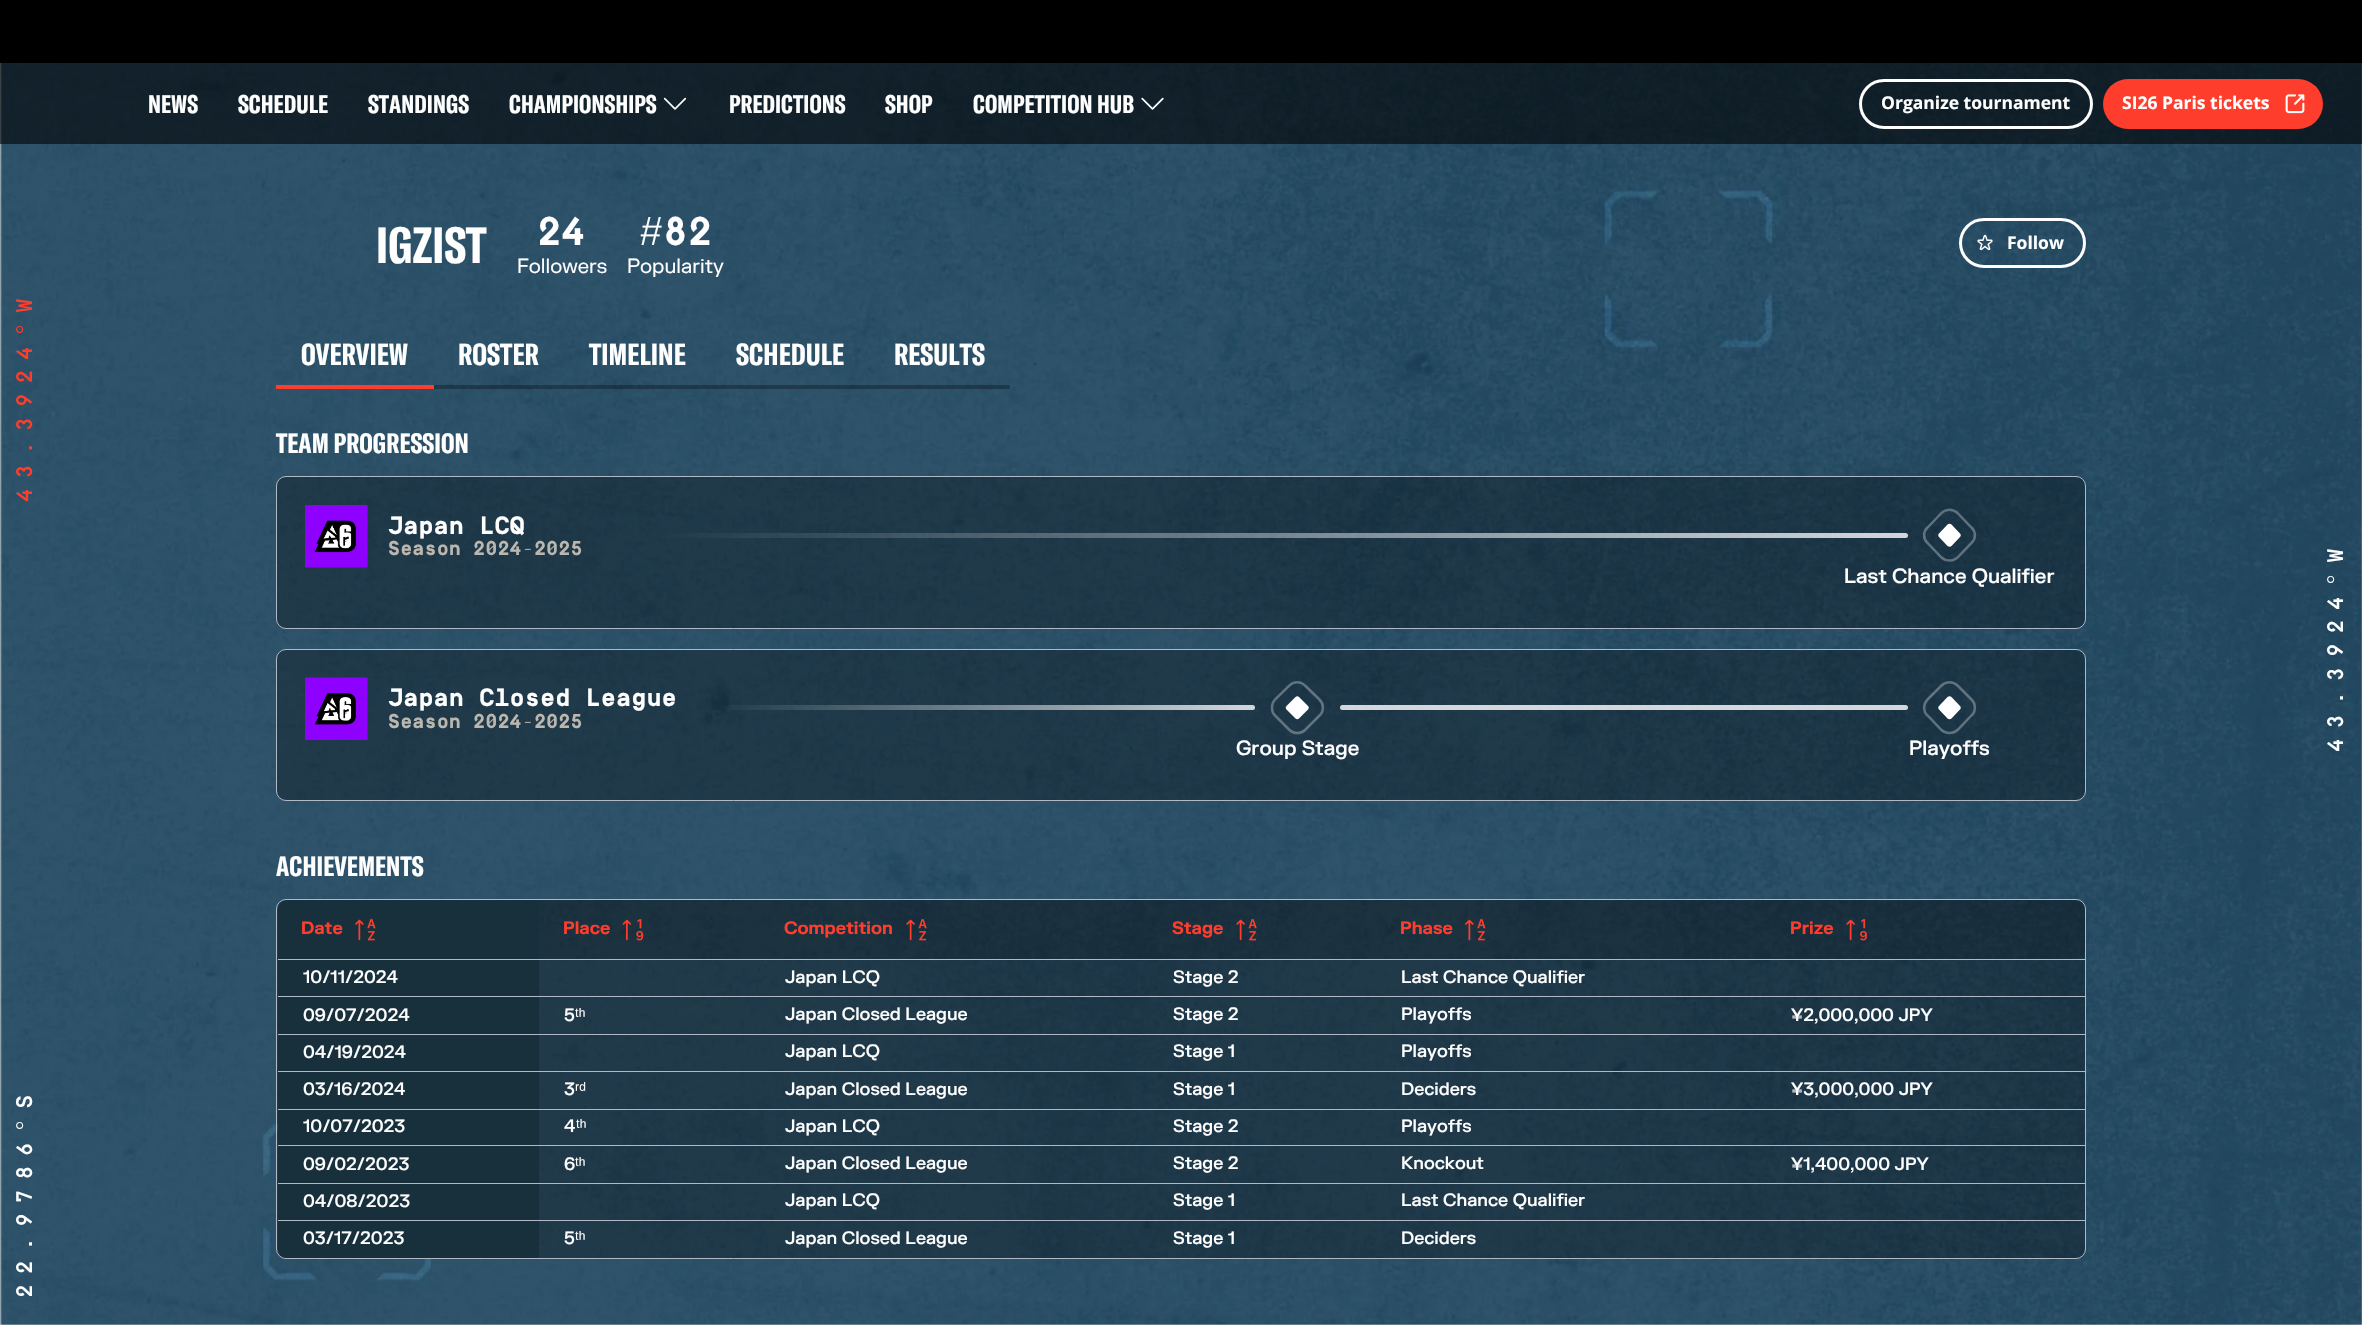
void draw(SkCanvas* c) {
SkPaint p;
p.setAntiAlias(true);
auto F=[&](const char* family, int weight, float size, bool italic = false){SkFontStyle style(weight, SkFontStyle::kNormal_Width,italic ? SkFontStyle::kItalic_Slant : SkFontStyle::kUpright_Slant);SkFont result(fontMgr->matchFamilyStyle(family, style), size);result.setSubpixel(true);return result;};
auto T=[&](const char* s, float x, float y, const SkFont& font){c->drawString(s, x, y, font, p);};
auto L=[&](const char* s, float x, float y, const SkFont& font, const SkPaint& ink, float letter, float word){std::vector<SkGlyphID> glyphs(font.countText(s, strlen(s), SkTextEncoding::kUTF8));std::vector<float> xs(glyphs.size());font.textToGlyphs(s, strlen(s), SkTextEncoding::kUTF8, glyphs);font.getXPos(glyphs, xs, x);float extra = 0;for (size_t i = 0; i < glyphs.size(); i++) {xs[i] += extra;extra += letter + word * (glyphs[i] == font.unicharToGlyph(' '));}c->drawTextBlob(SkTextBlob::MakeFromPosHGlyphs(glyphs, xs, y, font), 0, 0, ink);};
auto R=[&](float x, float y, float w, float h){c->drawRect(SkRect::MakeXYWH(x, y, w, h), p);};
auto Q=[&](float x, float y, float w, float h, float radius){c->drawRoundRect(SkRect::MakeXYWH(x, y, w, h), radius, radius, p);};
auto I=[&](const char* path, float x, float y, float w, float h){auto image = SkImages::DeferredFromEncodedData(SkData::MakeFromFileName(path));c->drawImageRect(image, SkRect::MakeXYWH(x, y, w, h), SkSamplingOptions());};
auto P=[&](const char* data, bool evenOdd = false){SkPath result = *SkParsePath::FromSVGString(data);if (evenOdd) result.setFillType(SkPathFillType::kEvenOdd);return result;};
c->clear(0xffffffff);
I("1.png",0,63,2362,1262);
p.setColor(0xff000000);
R(0,0,2362,63);
p.setColor(0x99000000);
R(0,63,2362,81);
auto f1 = F("GT America",700,25);
p.setColor(0xfffefefe);
L("NEWS",148,113,f1,p,.1,0);
L("SCHEDULE",238,113,f1,p,.1,0);
L("STANDINGS",368,113,f1,p,.1,0);
L("CHAMPIONSHIPS",509,113,f1,p,.1,0);
I("2.png",663,97,24,13);
L("PREDICTIONS",729,113,f1,p,.1,0);
L("SHOP",885,113,f1,p,.1,0);
L("COMPETITION HUB",973,113,f1,p,.1,0);
I("3.png",1141,97,23,13);
p.setStroke(true);
p.setStrokeWidth(3);
c->drawRoundRect(SkRect::MakeXYWH(1860.5,80.5,231,47),23.5,23.5,p);
auto f2 = F("Open Sans",700,17.5);
p.setStroke(false);
T("Organize tournament",1881,109,f2);
p.setColor(0xffff3d2c);
Q(2103,79,220,50,25);
p.setColor(0xfffefefe);
T("SI26 Paris tickets",2122,109,f2);
I("4.png",2285,94,20,20);
auto f3 = F("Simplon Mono",500,22.5);
p.setColor(0xffff3d2c);
c->save();
c->rotate(-90,32,502);
L("43.3924°W",32,502,f3,p,10,0);
c->restore();
auto f4 = F("GT America",700,50);
p.setColor(0xfffefefe);
L("IGZIST",376,263,f4,p,.1,0);
auto f5 = F("Simplon Mono",700,40);
T("24",537,245,f5);
T("#82",639,245,f5);
auto f6 = F("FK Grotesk",400,20);
T("Followers",517,273,f6);
T("Popularity",627,273,f6);
p.setStroke(true);
c->drawRoundRect(SkRect::MakeXYWH(1960.5,219.5,124,47),23.5,23.5,p);
I("5.png",1977,234,16,17);
p.setStroke(false);
T("Follow",2007,249,f2);
p.setColor(0xffff3d2c);
R(276,385,158,4);
auto f7 = F("GT America",700,30);
p.setColor(0xfffefefe);
L("OVERVIEW",301,365,f7,p,.1,0);
p.setColor(0x4d000000);
R(434,385,130,4);
p.setColor(0xfffefefe);
L("ROSTER",458,365,f7,p,.1,0);
p.setColor(0x4d000000);
R(564,385,147,4);
p.setColor(0xfffefefe);
L("TIMELINE",589,365,f7,p,.1,0);
p.setColor(0x4d000000);
R(711,385,158,4);
p.setColor(0xfffefefe);
L("SCHEDULE",736,365,f7,p,.1,0);
p.setColor(0x4d000000);
R(869,385,141,4);
p.setColor(0xfffefefe);
L("RESULTS",894,365,f7,p,.1,0);
auto f8 = F("GT America",700,27.5);
L("TEAM PROGRESSION",276,453,f8,p,.1,0);
p.setColor(0x4d000000);
c->drawRoundRect(SkRect::MakeXYWH(276.5,476.5,1809,152),9.5,9.5,p);
p.setStroke(true);
p.setStrokeWidth(1);
p.setColor(0xffb0bac6);
c->drawRoundRect(SkRect::MakeXYWH(276.5,476.5,1809,152),9.5,9.5,p);
I("6.png",305,505,63,63);
auto f9 = F("Simplon Mono",700,25);
p.setStroke(false);
p.setColor(0xfffefefe);
T("Japan LCQ",388,534,f9);
auto f10 = F("Simplon Mono",700,20);
p.setColor(0xffbbb7af);
T("Season 2024-2025",388,555,f10);
{
const SkColor colors[] = {0x00ffffff,0xccffffff};
const float stops[] = {.05,1};
const SkPoint ends[] = {{594,535}, {1908,535}};
p.setShader(SkGradientShader::MakeLinear(ends, colors, stops, 2, SkTileMode::kClamp));
p.setAlpha(255);
}
Q(594,533,1314,5,2.5);
p.setShader(nullptr);
p.setColor(0xffffffff);
c->drawPath(P("M1951.5 524.5l8.5 9c1 1 1 2.5 0 3.5l-8.5 9c-1 1-3 1-4 0l-8.5-9c-1-1-1-2.5 0-3.5l8.5-9c1-1 3-1 4 0z"),p);
p.setStroke(true);
p.setStrokeWidth(2.5);
p.setColor(0x4dffffff);
c->drawPath(P("M1957.5 513l14 14.5c4.5 4 4.5 11.5 0 15.5l-14 14.5c-4.5 4-11.5 4-16 0l-14-14.5c-4.5-4-4.5-11.5 0-15.5l14-14.5c4.5-4.5 11.5-4.5 16 0z"),p);
auto f11 = F("FK Grotesk",500,20);
p.setStroke(false);
p.setColor(0xfffefefe);
T("Last Chance Qualifier",1844,583,f11);
p.setColor(0x4d000000);
c->drawRoundRect(SkRect::MakeXYWH(276.5,649.5,1809,151),9.5,9.5,p);
p.setStroke(true);
p.setStrokeWidth(1);
p.setColor(0xffb0bac6);
c->drawRoundRect(SkRect::MakeXYWH(276.5,649.5,1809,151),9.5,9.5,p);
I("7.png",305,677,63,63);
p.setStroke(false);
p.setColor(0xfffefefe);
T("Japan Closed League",388,706,f9);
p.setColor(0xffbbb7af);
T("Season 2024-2025",388,728,f10);
{
const SkColor colors[] = {0x00ffffff,0xccffffff};
const float stops[] = {.05,1};
const SkPoint ends[] = {{688,708}, {1255,708}};
p.setShader(SkGradientShader::MakeLinear(ends, colors, stops, 2, SkTileMode::kClamp));
p.setAlpha(255);
}
Q(688,705,567,5,2.5);
p.setShader(nullptr);
p.setColor(0xccffffff);
Q(1340,705,568,5,2.5);
p.setColor(0xffffffff);
c->drawPath(P("M1299 697l9 9c1 1 1 2.5 0 3.5l-9 9c-1 1-2.5 1-3.5 0l-9-9c-1-1-1-2.5 0-3.5l9-9c1-1 2.5-1 3.5 0z"),p);
p.setStroke(true);
p.setStrokeWidth(2.5);
p.setColor(0x4dffffff);
c->drawPath(P("M1305 685.5l14.5 14c4.5 4.5 4.5 12 0 16l-14.5 14.5c-4 4-11.5 4-15.5 0l-14.5-14.5c-4-4-4-11.5 0-16l14.5-14c4-4.5 11.5-4.5 15.5 0z"),p);
p.setStroke(false);
p.setColor(0xfffefefe);
T("Group Stage",1236,755,f11);
p.setColor(0xffffffff);
c->drawPath(P("M1951.5 697l8.5 9c1 1 1 2.5 0 3.5l-8.5 9c-1 1-3 1-4 0l-8.5-9c-1-1-1-2.5 0-3.5l8.5-9c1-1 3-1 4 0z"),p);
p.setStroke(true);
p.setColor(0x4dffffff);
c->drawPath(P("M1957.5 685.5l14 14c4.5 4.5 4.5 12 0 16l-14 14.5c-4.5 4-11.5 4-16 0l-14-14.5c-4.5-4-4.5-11.5 0-16l14-14c4.5-4.5 11.5-4.5 16 0z"),p);
p.setStroke(false);
p.setColor(0xfffefefe);
T("Playoffs",1909,755,f11);
L("ACHIEVEMENTS",276,876,f8,p,.1,0);
p.setColor(0x4d000000);
c->drawRoundRect(SkRect::MakeXYWH(276.5,899.5,1809,359),9.5,9.5,p);
p.setStroke(true);
p.setStrokeWidth(1);
p.setColor(0xffb0bac6);
c->drawRoundRect(SkRect::MakeXYWH(276.5,899.5,1809,359),9.5,9.5,p);
c->save();
c->clipPath(P("M287 900h1789c5 0 9 4 9 9v340c0 5-4 9-9 9h-1789c-5 0-9-4-9-9v-340c0-5 4-9 9-9z"),true);
p.setStroke(false);
p.setColor(0xff182f3c);
c->drawPath(P("M288 900h251v59h-261v-49c0-5.5 4.5-10 10-10z"),p);
c->restore();
auto f12 = F("FK Grotesk",700,17.5);
p.setColor(0xffff3d2c);
T("Date",301,934,f12);
I("8.png",355,919,21,22);
p.setColor(0x26000000);
R(539,900,221,59);
p.setColor(0xffff3d2c);
T("Place",563,934,f12);
I("9.png",622,919,22,22);
p.setColor(0x26000000);
R(760,900,388,59);
p.setColor(0xffff3d2c);
T("Competition",784,934,f12);
I("10.png",906,919,21,22);
p.setColor(0x26000000);
R(1148,900,228,59);
p.setColor(0xffff3d2c);
T("Stage",1172,934,f12);
I("11.png",1236,919,21,22);
p.setColor(0x26000000);
R(1376,900,390,59);
p.setColor(0xffff3d2c);
T("Phase",1400,934,f12);
I("12.png",1465,919,21,22);
p.setColor(0x26000000);
c->drawPath(P("M1766 900h309c5.5 0 10 4.5 10 10v39c0 5.5-4.5 10-10 10h-309z"),p);
p.setColor(0xffff3d2c);
T("Prize",1790,934,f12);
I("13.png",1846,919,21,22);
p.setColor(0xffb0bac6);
R(278,959,1807,1);
p.setColor(0xff182f3c);
R(278,960,261,74);
p.setColor(0xffb0bac6);
R(278,996,261,1);
auto f13 = F("FK Grotesk",500,17.5);
p.setColor(0xfffefefe);
T("10/11/2024",303,983,f13);
T("Japan LCQ",785,983,f13);
T("Stage 2",1173,983,f13);
T("Last Chance Qualifier",1401,983,f13);
p.setColor(0xffb0bac6);
R(539,996,1546,1);
p.setColor(0xfffefefe);
T("09/07/2024",303,1021,f13);
p.setColor(0xffb0bac6);
R(278,1034,1807,1);
p.setColor(0xfffefefe);
T("5",564,1021,f13);
auto f14 = F("Liberation Sans",400,17.5);
T("ᵗʰ",575,1021,f14);
T("Japan Closed League",785,1020,f13);
T("Stage 2",1173,1020,f13);
T("Playoffs",1401,1020,f13);
T("¥2,000,000 JPY",1791,1021,f13);
p.setColor(0xff182f3c);
R(278,1035,261,74);
p.setColor(0xffb0bac6);
R(278,1071,261,1);
p.setColor(0xfffefefe);
T("04/19/2024",303,1058,f13);
T("Japan LCQ",785,1057,f13);
T("Stage 1",1173,1057,f13);
T("Playoffs",1401,1057,f13);
p.setColor(0xffb0bac6);
R(539,1071,1546,1);
p.setColor(0xfffefefe);
T("03/16/2024",303,1095,f13);
p.setColor(0xffb0bac6);
R(278,1109,1807,1);
p.setColor(0xfffefefe);
T("3",564,1095,f13);
T("ʳᵈ",575,1095,f14);
T("Japan Closed League",785,1095,f13);
T("Stage 1",1173,1095,f13);
T("Deciders",1401,1095,f13);
T("¥3,000,000 JPY",1791,1095,f13);
p.setColor(0xff182f3c);
R(278,1110,261,35);
p.setColor(0xfffefefe);
T("10/07/2023",303,1132,f13);
p.setColor(0xffb0bac6);
R(278,1145,1807,1);
p.setColor(0xfffefefe);
T("4",564,1132,f13);
T("ᵗʰ",576,1132,f14);
T("Japan LCQ",785,1132,f13);
T("Stage 2",1173,1132,f13);
T("Playoffs",1401,1132,f13);
p.setColor(0xff182f3c);
R(278,1146,261,37);
p.setColor(0xfffefefe);
T("09/02/2023",303,1170,f13);
p.setColor(0xffb0bac6);
R(278,1183,1807,1);
p.setColor(0xfffefefe);
T("6",564,1170,f13);
T("ᵗʰ",575,1170,f14);
T("Japan Closed League",785,1169,f13);
T("Stage 2",1173,1169,f13);
T("Knockout",1401,1169,f13);
T("¥1,400,000 JPY",1791,1170,f13);
p.setColor(0xff182f3c);
R(278,1184,261,36);
p.setColor(0xfffefefe);
T("04/08/2023",303,1207,f13);
T("Japan LCQ",785,1206,f13);
T("Stage 1",1173,1206,f13);
T("Last Chance Qualifier",1401,1206,f13);
p.setColor(0xffb0bac6);
R(278,1220,1807,1);
p.setColor(0xff182f3c);
c->drawPath(P("M278 1221h261v37h-252c-5 0-9-4-9-9z"),p);
p.setColor(0xfffefefe);
T("03/17/2023",303,1244,f13);
T("5",564,1244,f13);
T("ᵗʰ",575,1244,f14);
T("Japan Closed League",785,1244,f13);
T("Stage 1",1173,1244,f13);
T("Deciders",1401,1244,f13);
c->save();
c->rotate(-90,2343,752);
L("43.3924°W",2343,752,f3,p,10,0);
c->restore();
c->save();
c->rotate(-90,32,1298);
L("22.9786°S",32,1298,f3,p,10,0);
c->restore();
}
